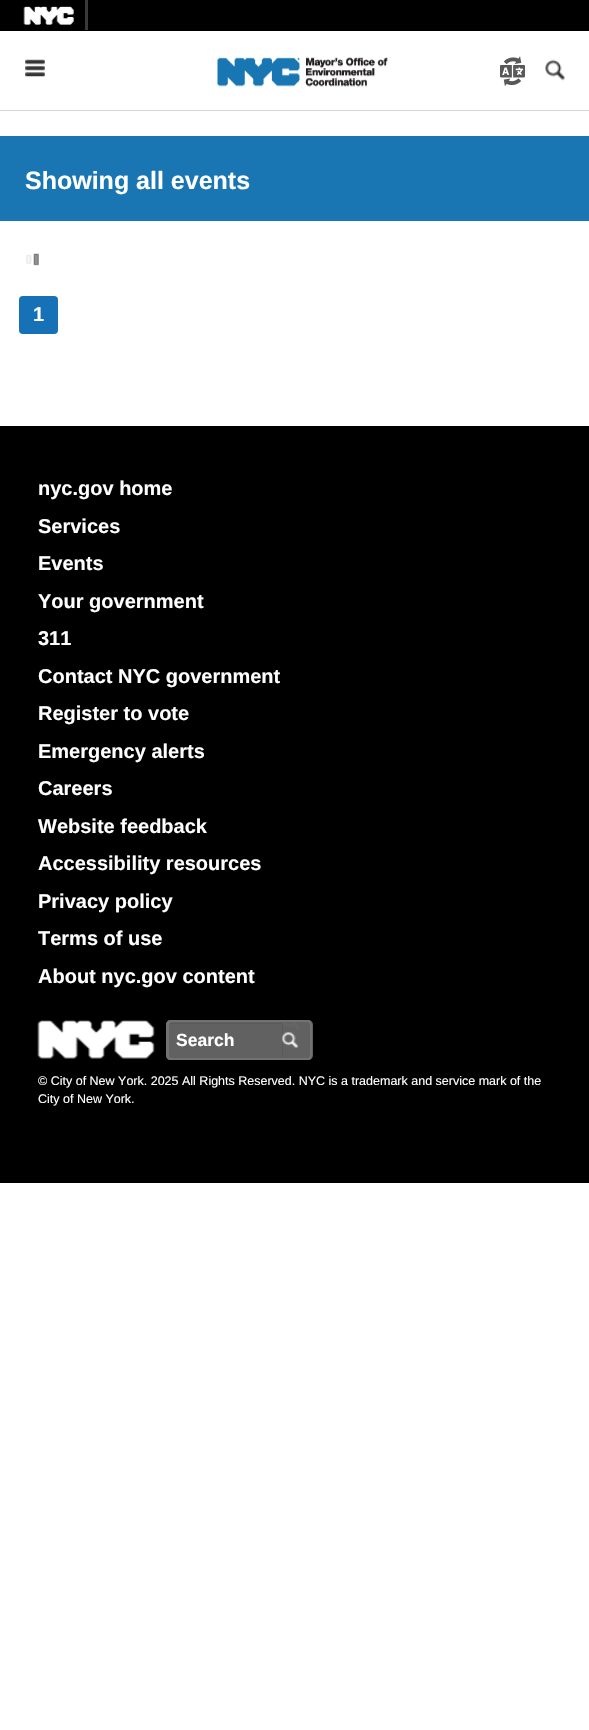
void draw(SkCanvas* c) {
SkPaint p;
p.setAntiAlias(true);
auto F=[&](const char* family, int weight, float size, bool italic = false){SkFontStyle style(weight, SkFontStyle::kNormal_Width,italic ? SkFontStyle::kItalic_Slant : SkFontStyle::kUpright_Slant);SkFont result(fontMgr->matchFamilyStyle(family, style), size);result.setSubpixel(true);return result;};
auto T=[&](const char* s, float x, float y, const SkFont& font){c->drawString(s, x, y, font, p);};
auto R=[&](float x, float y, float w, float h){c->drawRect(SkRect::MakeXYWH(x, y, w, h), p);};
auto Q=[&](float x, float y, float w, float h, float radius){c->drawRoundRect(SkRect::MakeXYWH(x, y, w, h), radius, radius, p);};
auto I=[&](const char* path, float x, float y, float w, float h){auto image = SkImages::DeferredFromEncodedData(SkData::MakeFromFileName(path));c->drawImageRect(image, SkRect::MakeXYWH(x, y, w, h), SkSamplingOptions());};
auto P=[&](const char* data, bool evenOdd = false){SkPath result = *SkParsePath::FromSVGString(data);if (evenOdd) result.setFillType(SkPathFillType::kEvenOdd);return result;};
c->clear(0xffffffff);
p.setColor(0xff000000);
R(0,0,589,31);
I("1.png",23,6,51,19);
p.setColor(0xff393939);
R(85,0,3,30);
p.setColor(0xffd5d5d5);
R(0,110,589,1);
I("2.png",25,59,20,18);
I("3.png",217,57,171,30);
I("4.png",500,56,25,30);
I("5.png",545,59,20,22);
p.setColor(0xff1a76b3);
R(0,136,589,85);
auto f1 = F("Liberation Sans",700,25);
p.setColor(0xffffffff);
T("Showing all events",25,189,f1);
I("6.png",26,253,13,13);
p.setColor(0xff1771b7);
Q(19,296,39,38,4);
auto f2 = F("Liberation Sans",700,20);
p.setColor(0xffffffff);
T("1",33,321,f2);
p.setColor(0xff000000);
R(0,426,589,757);
p.setColor(0xffffffff);
T("nyc.gov home",38,495,f2);
T("Services",38,533,f2);
T("Events",38,570,f2);
T("Your government",38,608,f2);
T("311",38,645,f2);
T("Contact NYC government",38,683,f2);
T("Register to vote",38,720,f2);
T("Emergency alerts",38,758,f2);
T("Careers",38,795,f2);
T("Website feedback",38,833,f2);
T("Accessibility resources",38,870,f2);
T("Privacy policy",38,908,f2);
T("Terms of use",38,945,f2);
T("About nyc.gov content",38,983,f2);
I("7.png",37,1020,118,39);
p.setColor(0xff616161);
c->drawPath(P("M171 1020h112v40h-112c-3 0-5-2-5-5v-30c0-3 2-5 5-5z"),p);
p.setColor(0xff5a5a5a);
c->drawPath(P("M171 1024h111v34h1v-35h-112c-1 0-2 2-2 3c0-1 1-2 2-2z"),p);
p.setColor(0xff727272);
c->drawPath(P("M171 1020h111v40h-111c-3 0-5-2-5-5v-30c0-3 2-5 5-5zm0 2h111v36h-111c-1 0-2-2-2-3v-30c0-1 1-3 2-3z",true),p);
auto f3 = F("Liberation Sans",700,17.5);
p.setColor(0xffffffff);
T("Search",176,1046,f3);
p.setColor(0xff616161);
c->drawPath(P("M283 1020h25c3 0 5 2 5 5v30c0 3-2 5-5 5h-25z"),p);
I("8.png",282,1022,17,26);
p.setColor(0xff727272);
c->drawPath(P("M282 1020h26c2 0 4 2 4 5v30c0 3-2 5-4 5h-26zm0 2h26c1 0 2 2 2 3v30c0 1-1 3-2 3h-26z",true),p);
auto f4 = F("Liberation Sans",400,12.5);
p.setColor(0xffffffff);
T("© City of New York. 2025 All Rights Reserved. NYC is a trademark and service mark of the",38,1085,f4);
T("City of New York.",38,1103,f4);
}
